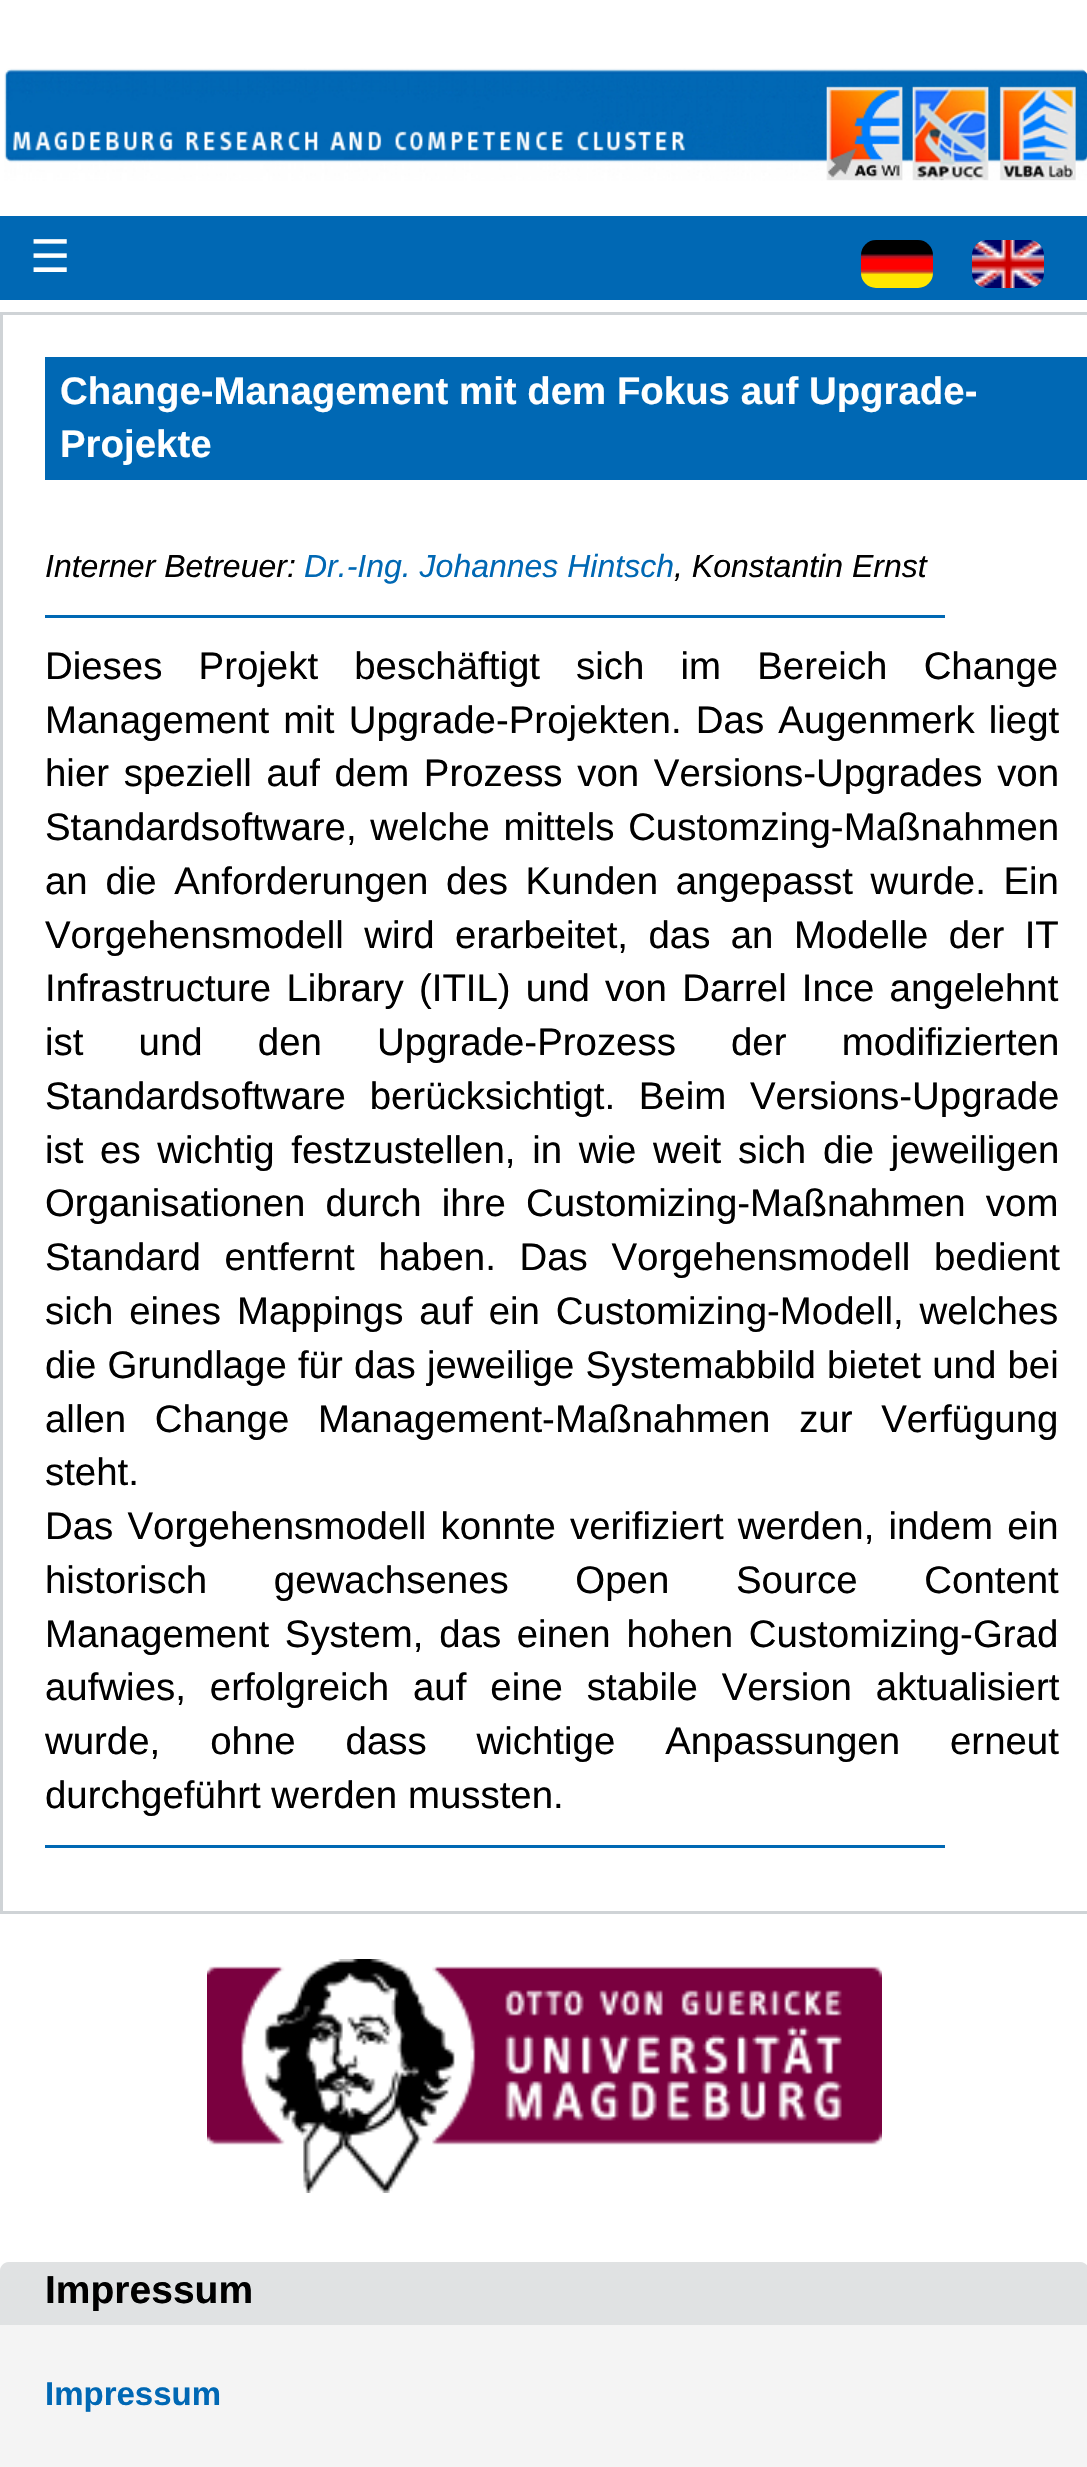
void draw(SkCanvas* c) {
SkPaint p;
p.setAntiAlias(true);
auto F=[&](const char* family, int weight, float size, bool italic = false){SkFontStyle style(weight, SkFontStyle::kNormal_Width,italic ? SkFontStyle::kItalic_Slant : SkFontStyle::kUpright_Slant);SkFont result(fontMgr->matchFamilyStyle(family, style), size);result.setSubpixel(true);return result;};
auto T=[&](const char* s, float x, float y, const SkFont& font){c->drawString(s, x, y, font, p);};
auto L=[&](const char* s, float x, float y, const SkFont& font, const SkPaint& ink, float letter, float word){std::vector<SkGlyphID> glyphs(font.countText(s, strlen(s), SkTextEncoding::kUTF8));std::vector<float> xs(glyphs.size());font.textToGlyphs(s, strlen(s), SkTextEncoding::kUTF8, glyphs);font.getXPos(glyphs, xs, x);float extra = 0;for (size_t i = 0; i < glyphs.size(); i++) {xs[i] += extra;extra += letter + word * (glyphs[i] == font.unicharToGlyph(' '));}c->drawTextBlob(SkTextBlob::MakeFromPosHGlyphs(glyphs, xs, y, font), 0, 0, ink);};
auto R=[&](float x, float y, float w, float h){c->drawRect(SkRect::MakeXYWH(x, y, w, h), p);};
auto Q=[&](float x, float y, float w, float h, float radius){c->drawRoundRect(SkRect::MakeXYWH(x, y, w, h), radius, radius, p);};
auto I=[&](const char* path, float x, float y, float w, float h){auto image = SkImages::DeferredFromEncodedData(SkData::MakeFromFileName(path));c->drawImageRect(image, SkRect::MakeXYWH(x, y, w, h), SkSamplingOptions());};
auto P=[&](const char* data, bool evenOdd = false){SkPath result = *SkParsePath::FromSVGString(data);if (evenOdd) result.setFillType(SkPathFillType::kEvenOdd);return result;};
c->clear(0xffffffff);
I("1.png",4,68,1083,113);
p.setColor(0xff0068b4);
R(0,216,1087,84);
auto f1 = F("DejaVu Sans",400,45);
p.setColor(0xffffffff);
T("☰",30,272,f1);
I("2.png",861,240,72,48);
I("3.png",972,240,72,48);
p.setStroke(true);
p.setStrokeWidth(3);
p.setColor(0xffcfd3d6);
c->drawRect(SkRect::MakeXYWH(1.5,313.5,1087,1599),p);
p.setStroke(false);
p.setColor(0xff0068b4);
R(45,357,1042,123);
auto f2 = F("Liberation Sans",700,38.4);
p.setColor(0xffffffff);
T("Change-Management mit dem Fokus auf Upgrade-",60,404,f2);
T("Projekte",60,457,f2);
auto f3 = F("Liberation Sans",400,32,true);
p.setColor(0xff000000);
T("Interner Betreuer:",45,577,f3);
p.setColor(0xff0068b4);
T("Dr.-Ing. Johannes Hintsch",304,577,f3);
p.setColor(0xff000000);
T(", Konstantin Ernst",674,577,f3);
p.setColor(0xff0068b4);
R(45,615,900,3);
auto f4 = F("Liberation Sans",400,38.4);
p.setColor(0xff000000);
L("Dieses Projekt beschäftigt sich im Bereich Change",45,679,f4,p,0,25.5);
L("Management mit Upgrade-Projekten. Das Augenmerk liegt",45,733,f4,p,0,3.5);
L("hier speziell auf dem Prozess von Versions-Upgrades von",45,786,f4,p,0,4);
L("Standardsoftware, welche mittels Customzing-Maßnahmen",45,840,f4,p,0,3);
L("an die Anforderungen des Kunden angepasst wurde. Ein",45,894,f4,p,0,7);
L("Vorgehensmodell wird erarbeitet, das an Modelle der IT",45,948,f4,p,0,9.75);
L("Infrastructure Library (ITIL) und von Darrel Ince angelehnt",45,1001,f4,p,0,4.5);
L("ist und den Upgrade-Prozess der modifizierten",45,1055,f4,p,0,44.5);
L("Standardsoftware berücksichtigt. Beim Versions-Upgrade",45,1109,f4,p,0,13);
L("ist es wichtig festzustellen, in wie weit sich die jeweiligen",45,1163,f4,p,0,6);
L("Organisationen durch ihre Customizing-Maßnahmen vom",45,1216,f4,p,0,9.5);
L("Standard entfernt haben. Das Vorgehensmodell bedient",45,1270,f4,p,0,13);
L("sich eines Mappings auf ein Customizing-Modell, welches",45,1324,f4,p,0,5.25);
L("die Grundlage für das jeweilige Systemabbild bietet und bei",45,1378,f4,p,0,.5);
L("allen Change Management-Maßnahmen zur Verfügung",45,1432,f4,p,0,18);
T("steht.",45,1485,f4);
L("Das Vorgehensmodell konnte verifiziert werden, indem ein",45,1539,f4,p,0,3.5);
L("historisch gewachsenes Open Source Content",45,1593,f4,p,0,56);
L("Management System, das einen hohen Customizing-Grad",45,1647,f4,p,0,5);
L("aufwies, erfolgreich auf eine stabile Version aktualisiert",45,1700,f4,p,0,13.25);
L("wurde, ohne dass wichtige Anpassungen erneut",45,1754,f4,p,0,39.25);
T("durchgeführt werden mussten.",45,1808,f4);
p.setColor(0xff0068b4);
R(45,1845,900,3);
I("4.png",207,1959,675,234);
p.setColor(0xfff4f4f4);
Q(0,2262,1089,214,9);
p.setColor(0xffe0e2e3);
c->drawPath(P("M9 2262h1071c5 0 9 4 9 9v57h-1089v-57c0-5 4-9 9-9z"),p);
p.setColor(0xfff4f4f4);
R(0,2325,1087,3);
auto f5 = F("Liberation Sans",700,39);
p.setColor(0xff000000);
T("Impressum",45,2303,f5);
auto f6 = F("Liberation Sans",700,33);
p.setColor(0xff0068b4);
T("Impressum",45,2405,f6);
}
